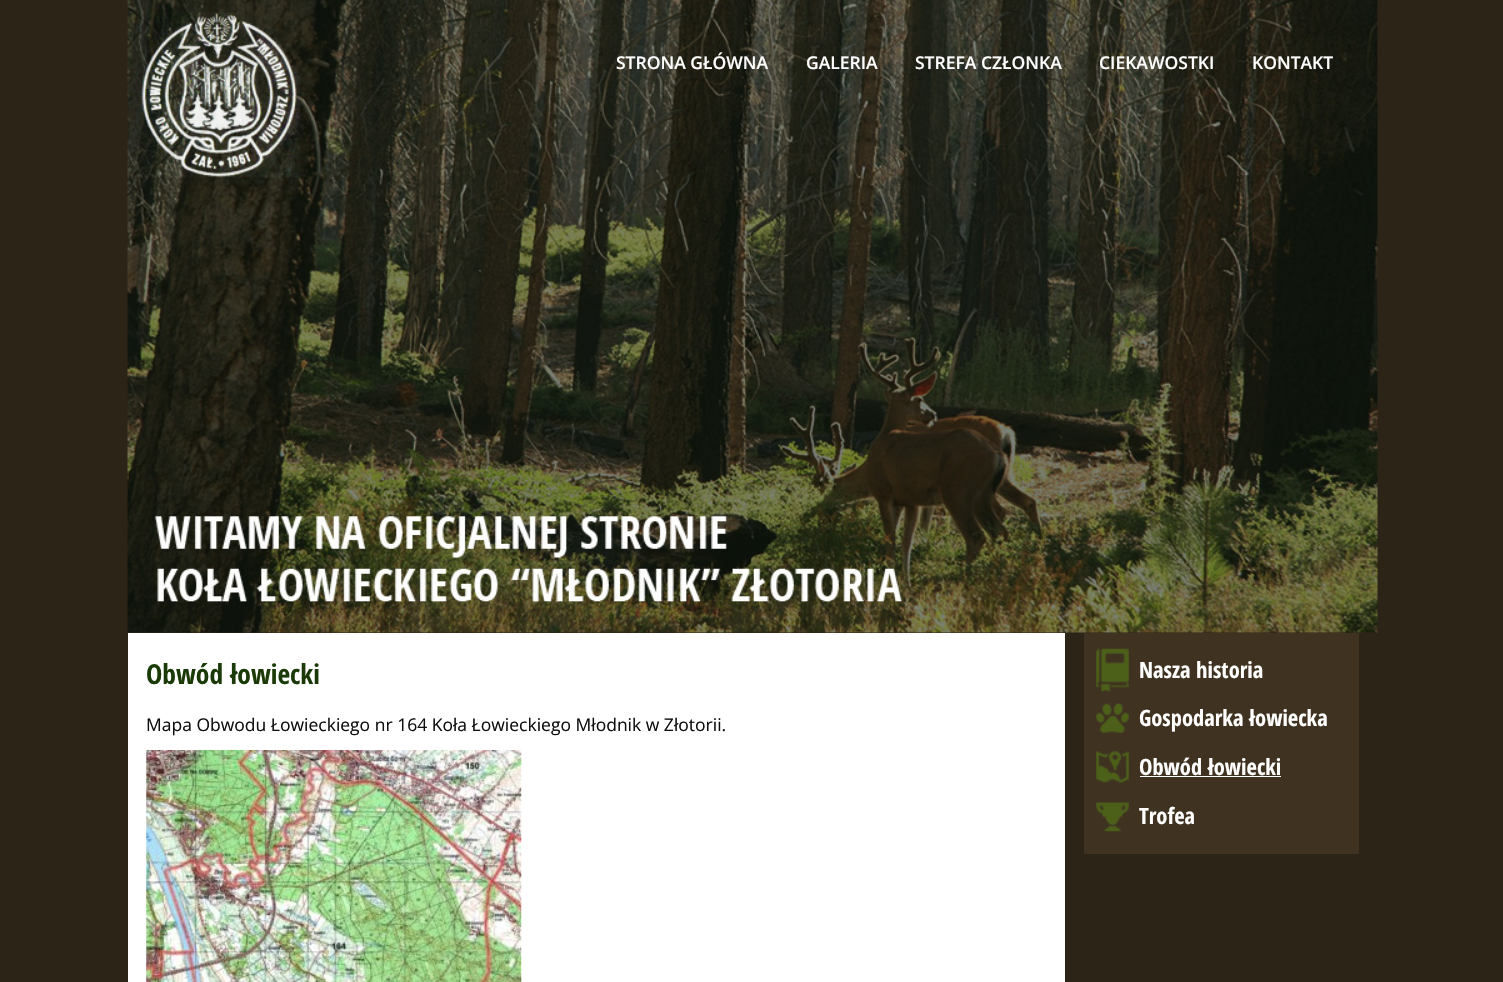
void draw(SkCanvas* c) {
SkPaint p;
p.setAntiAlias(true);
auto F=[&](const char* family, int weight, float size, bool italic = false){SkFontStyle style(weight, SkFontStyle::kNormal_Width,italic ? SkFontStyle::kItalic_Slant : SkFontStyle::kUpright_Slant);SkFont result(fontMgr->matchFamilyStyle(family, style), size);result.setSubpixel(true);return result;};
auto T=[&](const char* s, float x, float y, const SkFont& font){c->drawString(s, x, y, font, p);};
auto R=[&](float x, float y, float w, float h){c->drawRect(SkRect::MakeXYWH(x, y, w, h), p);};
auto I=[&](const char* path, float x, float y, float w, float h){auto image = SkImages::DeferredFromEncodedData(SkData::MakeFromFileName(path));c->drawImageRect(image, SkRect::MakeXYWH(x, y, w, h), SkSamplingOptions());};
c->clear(0xff2d2418);
I("1.png",127,0,1251,633);
auto f1 = F("Open Sans",600,17.5);
p.setColor(0xffffffff);
T("STRONA GŁÓWNA",616,69,f1);
T("GALERIA",806,69,f1);
T("STREFA CZŁONKA",915,69,f1);
T("CIEKAWOSTKI",1099,69,f1);
T("KONTAKT",1252,69,f1);
R(128,633,937,349);
auto f2 = F("Open Sans Condensed",700,27.5);
p.setColor(0xff1a3b07);
T("Obwód łowiecki",146,684,f2);
auto f3 = F("Open Sans",400,17.5);
p.setColor(0xff0f0f0f);
T("Mapa Obwodu Łowieckiego nr 164 Koła Łowieckiego Młodnik w Złotorii.",146,731,f3);
I("2.png",146,750,376,232);
p.setColor(0xff3f3221);
R(1084,633,275,221);
I("3.png",1096,648,33,44);
auto f4 = F("Open Sans Condensed",700,22.5);
p.setColor(0xffffffff);
T("Nasza historia",1139,678,f4);
I("4.png",1096,703,33,31);
T("Gospodarka łowiecka",1139,726,f4);
I("5.png",1096,751,33,32);
T("Obwód łowiecki",1139,775,f4);
R(1140,776,141,1);
I("6.png",1096,802,33,30);
T("Trofea",1139,824,f4);
}
